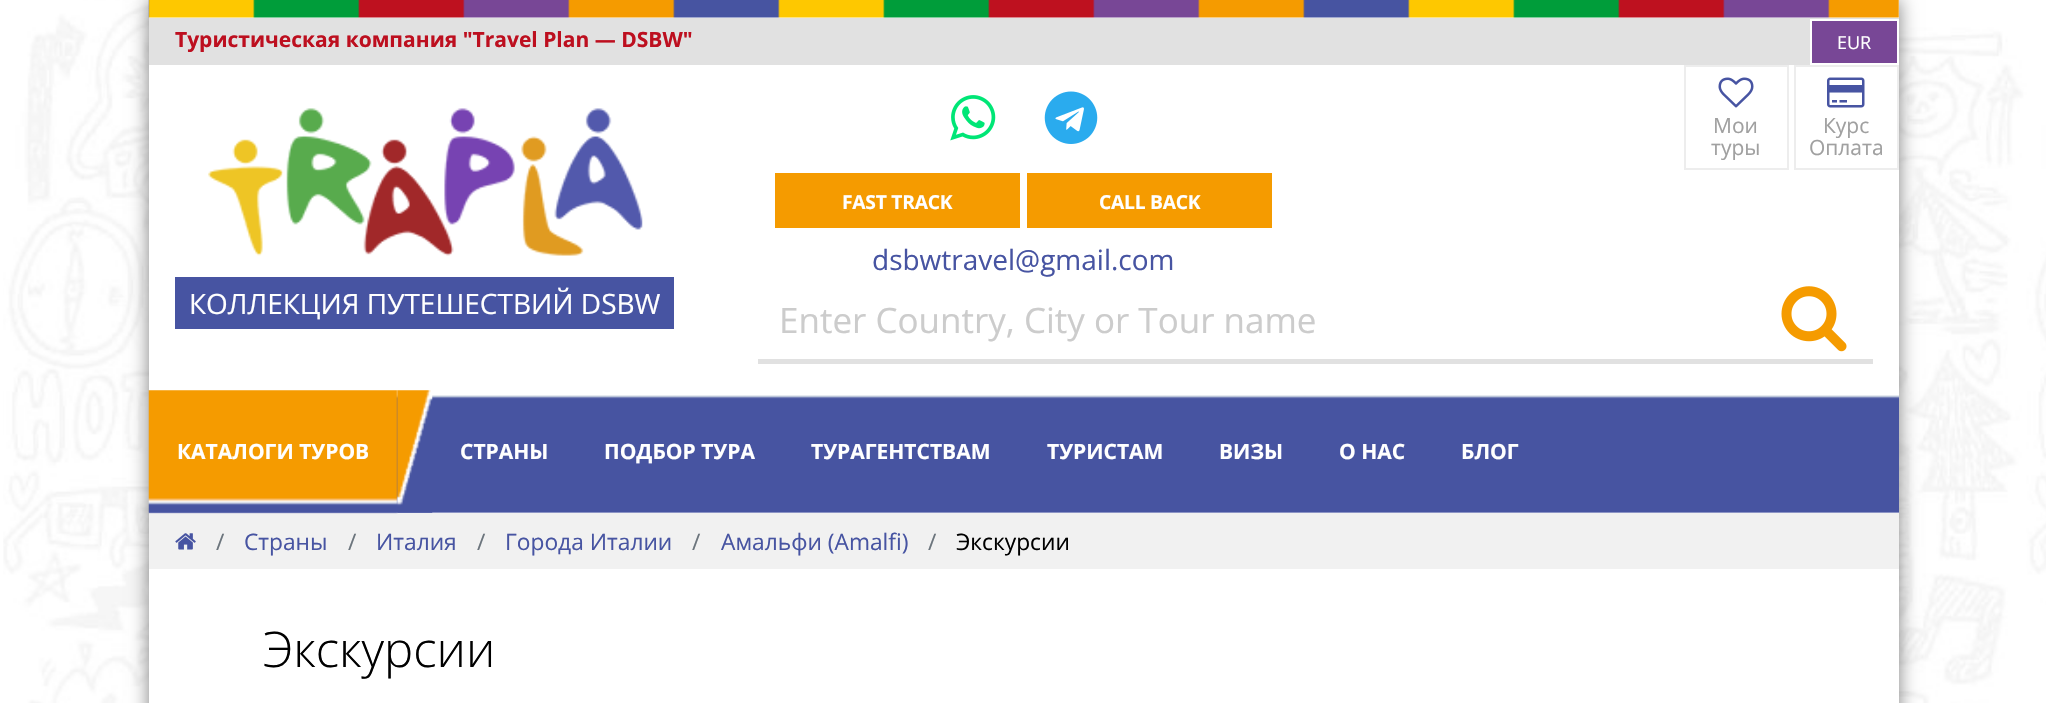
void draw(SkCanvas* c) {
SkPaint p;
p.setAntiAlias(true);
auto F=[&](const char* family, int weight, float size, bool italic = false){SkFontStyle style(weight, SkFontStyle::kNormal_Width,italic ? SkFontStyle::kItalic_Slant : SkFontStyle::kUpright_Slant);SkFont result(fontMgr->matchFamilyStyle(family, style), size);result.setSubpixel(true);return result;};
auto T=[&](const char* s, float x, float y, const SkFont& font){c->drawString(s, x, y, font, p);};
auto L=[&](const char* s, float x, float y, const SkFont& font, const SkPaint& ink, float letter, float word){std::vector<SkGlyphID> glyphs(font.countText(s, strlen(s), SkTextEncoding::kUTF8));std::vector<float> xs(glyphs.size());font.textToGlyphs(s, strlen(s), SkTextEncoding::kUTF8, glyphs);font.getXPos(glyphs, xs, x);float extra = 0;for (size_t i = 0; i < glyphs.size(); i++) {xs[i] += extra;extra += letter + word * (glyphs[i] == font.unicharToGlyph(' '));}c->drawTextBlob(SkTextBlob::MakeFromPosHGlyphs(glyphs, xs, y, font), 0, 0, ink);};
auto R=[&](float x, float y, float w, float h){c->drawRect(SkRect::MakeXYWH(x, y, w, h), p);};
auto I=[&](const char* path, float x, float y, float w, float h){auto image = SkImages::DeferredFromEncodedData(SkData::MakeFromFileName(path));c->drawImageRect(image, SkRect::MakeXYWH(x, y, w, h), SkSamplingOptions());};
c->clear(0xffffffff);
I("1.png",3,0,2043,703);
p.setColor(0x80000000);
p.setMaskFilter(SkMaskFilter::MakeBlur(kNormal_SkBlurStyle, 9));
c->drawRect(SkRect::MakeXYWH(149,0,1750,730),p);
p.setMaskFilter(nullptr);
p.setColor(0xffffffff);
R(149,0,1750,703);
I("2.png",148,0,1751,18);
p.setColor(0xffe1e1e1);
R(149,18,1750,47);
auto f1 = F("Open Sans",700,21);
p.setColor(0xffbd0f1f);
T("Туристическая компания \"Travel Plan — DSBW\"",175,47,f1);
p.setColor(0xff784796);
c->drawRect(SkRect::MakeXYWH(1811,20,87,44),p);
p.setStroke(true);
p.setStrokeWidth(2);
p.setColor(0xffffffff);
c->drawRect(SkRect::MakeXYWH(1811,20,87,44),p);
auto f2 = F("Open Sans",400,18);
p.setStroke(false);
T("EUR",1837,49,f2);
I("3.png",208,108,435,148);
p.setColor(0xff4754a2);
R(175,277,499,52);
auto f3 = F("Open Sans",400,28);
p.setColor(0xffffffff);
T("КОЛЛЕКЦИЯ ПУТЕШЕСТВИЙ DSBW",189,314,f3);
p.setStroke(true);
p.setColor(0xffededed);
c->drawRect(SkRect::MakeXYWH(1685,66,103,103),p);
I("4.png",1718,77,36,31);
auto f4 = F("Open Sans",400,21);
p.setStroke(false);
p.setColor(0xffa0a0a0);
T("Мои",1713,133,f4);
T("туры",1711,155,f4);
p.setStroke(true);
p.setColor(0xffededed);
c->drawRect(SkRect::MakeXYWH(1795,66,103,103),p);
I("5.png",1827,77,38,31);
p.setStroke(false);
p.setColor(0xffa0a0a0);
T("Курс",1823,133,f4);
T("Оплата",1809,155,f4);
I("6.png",950,95,46,46);
I("7.png",1044,91,54,53);
p.setColor(0xfff59b00);
R(775,173,245,55);
auto f5 = F("Open Sans",700,19.25);
p.setColor(0xffffffff);
L("FAST TRACK",842,209,f5,p,-.25,0);
p.setColor(0xfff59b00);
R(1027,173,245,55);
p.setColor(0xffffffff);
L("CALL BACK",1099,209,f5,p,-.25,0);
p.setColor(0xff4754a2);
T("dsbwtravel@gmail.com",872,270,f3);
p.setColor(0xffe1e1e1);
R(758,359,1115,5);
auto f6 = F("Open Sans",400,35);
p.setColor(0xffcccccc);
T("Enter Country, City or Tour name",779,333,f6);
I("8.png",1781,286,66,66);
I("9.png",149,395,1750,118);
p.setColor(0xfff1f1f1);
R(149,513,1750,56);
I("10.png",148,390,250,124);
p.setColor(0xffffffff);
T("КАТАЛОГИ ТУРОВ",177,459,f1);
I("11.png",396,390,37,123);
T("СТРАНЫ",460,459,f1);
T("ПОДБОР ТУРА",604,459,f1);
T("ТУРАГЕНТСТВАМ",811,459,f1);
T("ТУРИСТАМ",1047,459,f1);
T("ВИЗЫ",1219,459,f1);
T("О НАС",1339,459,f1);
T("БЛОГ",1461,459,f1);
I("12.png",175,533,21,17);
auto f7 = F("Open Sans",400,22.75);
p.setColor(0xff6c757d);
T("/",216,550,f7);
p.setColor(0xff4754a2);
T("Страны",244,550,f7);
p.setColor(0xff6c757d);
T("/",348,550,f7);
p.setColor(0xff4754a2);
T("Италия",376,550,f7);
p.setColor(0xff6c757d);
T("/",477,550,f7);
p.setColor(0xff4754a2);
T("Города Италии",505,550,f7);
p.setColor(0xff6c757d);
T("/",692,550,f7);
p.setColor(0xff4754a2);
T("Амальфи (Amalfi)",721,550,f7);
p.setColor(0xff6c757d);
T("/",928,550,f7);
p.setColor(0xff000000);
T("Экскурсии",956,550,f7);
auto f8 = F("Open Sans",300,49);
T("Экскурсии",263,667,f8);
}
